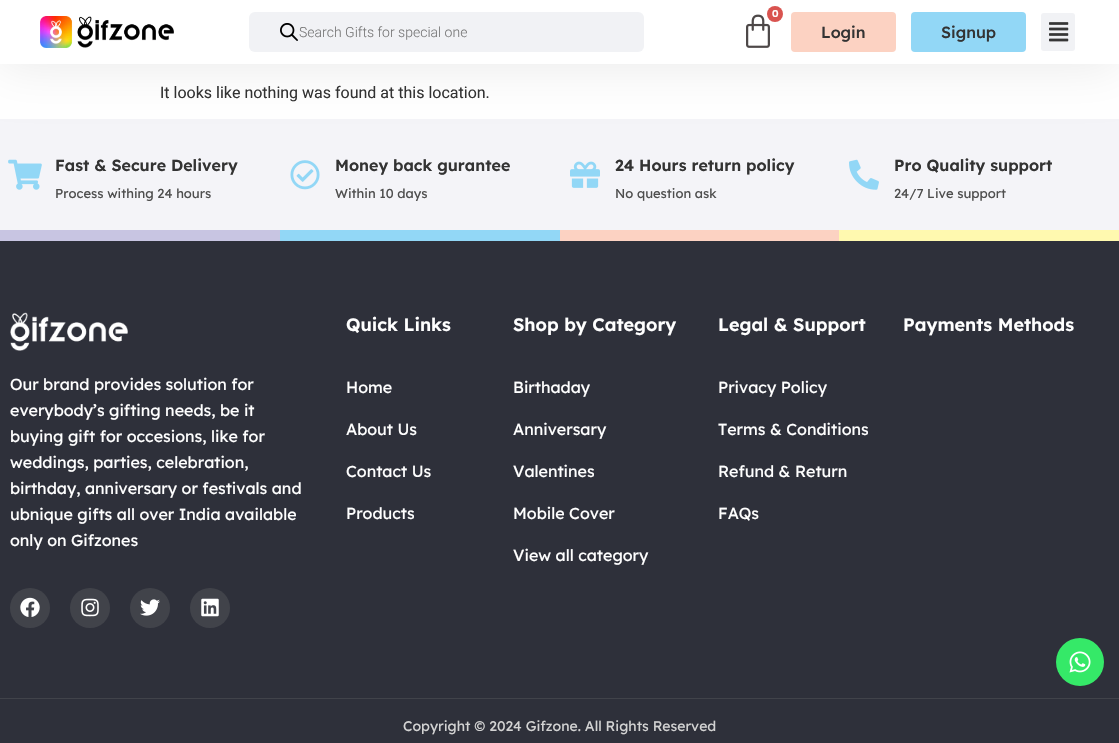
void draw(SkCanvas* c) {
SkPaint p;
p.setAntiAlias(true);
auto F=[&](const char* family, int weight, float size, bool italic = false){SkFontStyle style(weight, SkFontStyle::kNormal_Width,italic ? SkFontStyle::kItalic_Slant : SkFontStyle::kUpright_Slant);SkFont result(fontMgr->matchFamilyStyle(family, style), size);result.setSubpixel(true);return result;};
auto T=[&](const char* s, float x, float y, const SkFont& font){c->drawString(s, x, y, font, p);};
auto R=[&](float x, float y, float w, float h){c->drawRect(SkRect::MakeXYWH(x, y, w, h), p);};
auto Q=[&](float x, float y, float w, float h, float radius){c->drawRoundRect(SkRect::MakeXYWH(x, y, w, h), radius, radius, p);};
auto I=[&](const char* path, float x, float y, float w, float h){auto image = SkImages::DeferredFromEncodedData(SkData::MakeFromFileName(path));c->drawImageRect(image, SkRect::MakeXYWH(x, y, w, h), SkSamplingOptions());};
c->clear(0xffffffff);
p.setColor(0xfff4f4f8);
R(0,119,1119,111);
p.setColor(0x17000000);
p.setMaskFilter(SkMaskFilter::MakeBlur(kNormal_SkBlurStyle, 25));
c->drawRect(SkRect::MakeXYWH(0,0,1119,64),p);
p.setMaskFilter(nullptr);
p.setColor(0xffffffff);
R(0,0,1119,64);
I("1.png",40,16,134,32);
p.setColor(0xfff1f2f5);
Q(249,12,395,40,6);
I("2.png",280,23,18,18);
auto f1 = F("Roboto",300,14);
p.setColor(0xff777777);
T("Search Gifts for special one",299,37,f1);
I("3.png",746,14,24,34);
p.setColor(0xffd9534f);
c->drawCircle(775,14,8,p);
auto f2 = F("Lexend",600,10);
p.setColor(0xffffffff);
T("0",772,17,f2);
p.setColor(0xfffcd2c2);
Q(791,12,105,40,4);
auto f3 = F("Lexend",500,16);
p.setColor(0xff333333);
T("Login",821,38,f3);
p.setColor(0xff92d7f6);
Q(911,12,115,40,4);
p.setColor(0xff333333);
T("Signup",941,38,f3);
p.setColor(0xfff1f2f5);
Q(1041,13,34,38,3);
I("4.png",1049,22,20,20);
auto f4 = F("Roboto",400,16);
p.setColor(0xff333333);
T("It looks like nothing was found at this location.",160,98,f4);
I("5.png",8,159,34,31);
auto f5 = F("Lexend",600,16);
T("Fast & Secure Delivery",55,171,f5);
auto f6 = F("Lexend",400,13);
p.setColor(0xff4e4e4e);
T("Process withing 24 hours",55,198,f6);
I("6.png",290,160,30,30);
p.setColor(0xff333333);
T("Money back gurantee",335,171,f5);
p.setColor(0xff4e4e4e);
T("Within 10 days",335,198,f6);
I("7.png",570,161,30,27);
p.setColor(0xff333333);
T("24 Hours return policy",615,171,f5);
p.setColor(0xff4e4e4e);
T("No question ask",615,198,f6);
I("8.png",849,159,30,31);
p.setColor(0xff333333);
T("Pro Quality support",894,171,f5);
p.setColor(0xff4e4e4e);
T("24/7 Live support",894,198,f6);
p.setColor(0xffc8c5e2);
R(0,230,280,11);
p.setColor(0xff92d7f6);
R(280,230,280,11);
p.setColor(0xfffcd2c2);
R(560,230,279,11);
p.setColor(0xfffff9af);
R(839,230,280,11);
p.setColor(0xff2e303a);
R(0,241,1119,457);
p.setColor(0xff41434a);
R(0,698,1119,1);
auto f7 = F("Lexend",600,18);
p.setColor(0xffffffff);
T("Quick Links",346,331,f7);
auto f8 = F("Lexend",400,16);
T("Home",346,393,f8);
T("About Us",346,435,f8);
T("Contact Us",346,477,f8);
T("Products",346,519,f8);
T("Shop by Category",513,331,f7);
T("Birthaday",513,393,f8);
T("Anniversary",513,435,f8);
T("Valentines",513,477,f8);
T("Mobile Cover",513,519,f8);
T("View all category",513,561,f8);
T("Legal & Support",718,331,f7);
T("Privacy Policy",718,393,f8);
T("Terms & Conditions",718,435,f8);
T("Refund & Return",718,477,f8);
T("FAQs",718,519,f8);
T("Payments Methods",903,331,f7);
p.setColor(0xff35e968);
c->drawCircle(1080,662,24,p);
I("9.png",1069,651,22,22);
I("10.png",10,312,118,39);
p.setColor(0xffffffff);
T("Our brand provides solution for",10,390,f8);
T("everybody’s gifting needs, be it",10,416,f8);
T("buying gift for occesions, like for",10,442,f8);
T("weddings, parties, celebration,",10,468,f8);
T("birthday, anniversary or festivals and",10,494,f8);
T("ubnique gifts all over India available",10,520,f8);
T("only on Gifzones",10,546,f8);
p.setColor(0xff41434a);
c->drawCircle(30,608,20,p);
I("11.png",20,597,20,20);
c->drawCircle(90,608,20,p);
I("12.png",81,598,18,19);
c->drawCircle(150,608,20,p);
I("13.png",140,599,20,17);
c->drawCircle(210,608,20,p);
I("14.png",201,598,18,19);
p.setColor(0xff2e303a);
R(0,699,1119,44);
auto f9 = F("Lexend",400,14);
p.setColor(0xffd3d3d3);
T("Copyright © 2024 Gifzone. All Rights Reserved",403,731,f9);
}
